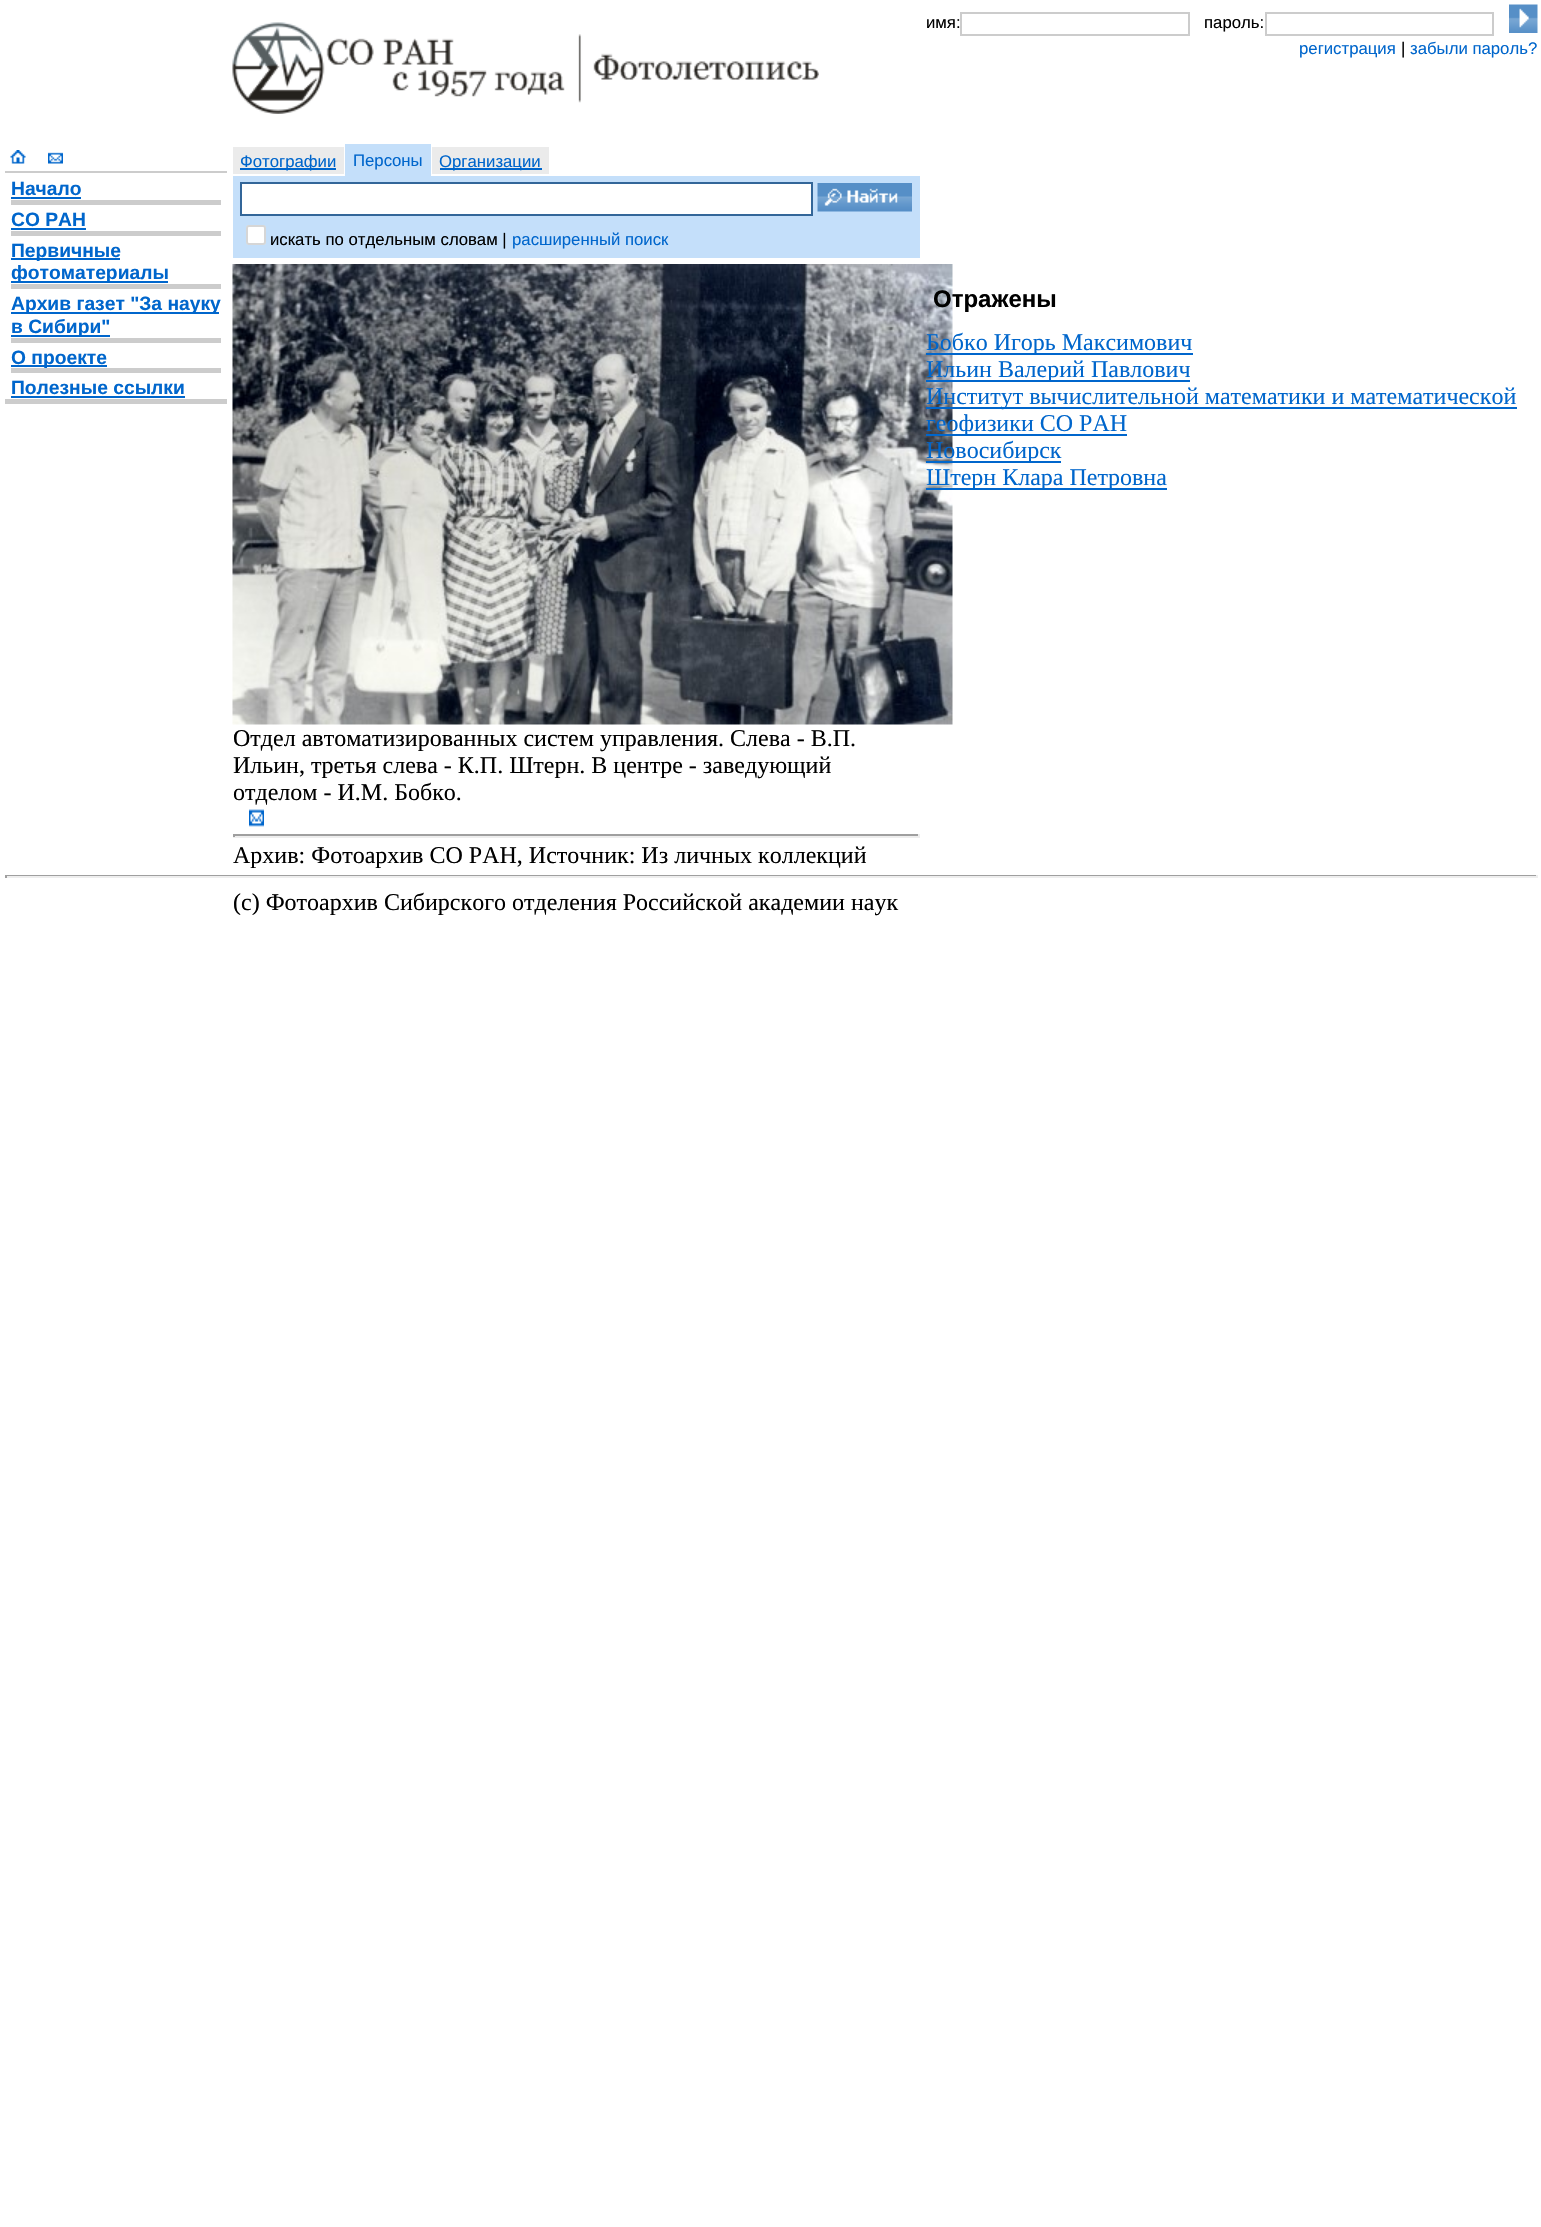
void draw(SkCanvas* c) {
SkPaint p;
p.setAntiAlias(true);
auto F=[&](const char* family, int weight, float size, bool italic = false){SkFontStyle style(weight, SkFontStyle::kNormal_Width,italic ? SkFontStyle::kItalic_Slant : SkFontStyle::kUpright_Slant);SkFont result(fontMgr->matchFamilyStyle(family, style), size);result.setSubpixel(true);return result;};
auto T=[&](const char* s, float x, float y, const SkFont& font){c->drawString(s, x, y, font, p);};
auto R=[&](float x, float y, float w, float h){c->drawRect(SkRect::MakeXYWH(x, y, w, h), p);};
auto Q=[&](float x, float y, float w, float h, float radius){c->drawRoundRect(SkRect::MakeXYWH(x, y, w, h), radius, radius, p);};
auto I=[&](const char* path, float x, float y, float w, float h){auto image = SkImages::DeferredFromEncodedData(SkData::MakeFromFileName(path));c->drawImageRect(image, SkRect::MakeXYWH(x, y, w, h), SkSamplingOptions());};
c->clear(0xffffffff);
I("1.png",232,22,587,92);
auto f1 = F("Liberation Sans",400,16.75);
p.setColor(0xff000000);
T("имя:",926,28,f1);
p.setStroke(true);
p.setStrokeWidth(2);
p.setColor(0xffcccccc);
c->drawRect(SkRect::MakeXYWH(961,13,228,22),p);
p.setStroke(false);
p.setColor(0xff000000);
T("пароль:",1204,28,f1);
p.setStroke(true);
p.setColor(0xffcccccc);
c->drawRect(SkRect::MakeXYWH(1266,13,227,22),p);
I("2.png",1509,4,29,29);
p.setStroke(false);
p.setColor(0xff0066cc);
T("регистрация",1299,54,f1);
p.setColor(0xff000000);
T("|",1401,54,f1);
p.setColor(0xff0066cc);
T("забыли пароль?",1410,54,f1);
I("3.png",10,150,16,14);
I("4.png",48,152,15,12);
p.setColor(0xffcccccc);
R(5,171,222,2);
auto f2 = F("Liberation Sans",700,19.25);
p.setColor(0xff0066cc);
T("Начало",11,195,f2);
R(11,197,70,2);
p.setColor(0xffcccccc);
R(11,200,210,5);
p.setColor(0xff0066cc);
T("СО РАН",11,226,f2);
R(11,228,75,2);
p.setColor(0xffcccccc);
R(11,231,210,5);
p.setColor(0xff0066cc);
R(11,258,109,2);
T("Первичные",11,257,f2);
R(11,281,157,2);
T("фотоматериалы",11,279,f2);
p.setColor(0xffcccccc);
R(11,284,210,5);
p.setColor(0xff0066cc);
R(11,312,208,2);
T("Архив газет \"За науку",11,310,f2);
R(11,335,99,2);
T("в Сибири\"",11,333,f2);
p.setColor(0xffcccccc);
R(11,338,210,5);
p.setColor(0xff0066cc);
R(11,365,96,2);
T("О проекте",11,364,f2);
p.setColor(0xffcccccc);
R(11,368,210,5);
p.setColor(0xff0066cc);
T("Полезные ссылки",11,394,f2);
R(11,396,174,2);
p.setColor(0xffcccccc);
R(5,399,222,5);
p.setColor(0xffebebeb);
R(233,147,111,27);
p.setColor(0xff0066cc);
R(240,168,96,2);
T("Фотографии",240,167,f1);
p.setColor(0xffc4dffa);
R(345,144,86,32);
p.setColor(0xff0066cc);
T("Персоны",353,166,f1);
p.setColor(0xffebebeb);
R(432,147,117,27);
p.setColor(0xff0066cc);
R(440,168,102,2);
T("Организации",439,167,f1);
p.setColor(0xffc4dffa);
R(233,176,687,82);
p.setColor(0xffffffff);
c->drawRect(SkRect::MakeXYWH(241,183,571,32),p);
p.setStroke(true);
p.setColor(0xff336699);
c->drawRect(SkRect::MakeXYWH(241,183,571,32),p);
I("5.png",817,183,95,29);
p.setStroke(false);
p.setColor(0xffffffff);
Q(246,225,20,20,3);
p.setStroke(true);
p.setColor(0x4d767676);
c->drawRoundRect(SkRect::MakeXYWH(247,226,18,18),2,2,p);
p.setStroke(false);
p.setColor(0xff000000);
T("искать по отдельным словам |",270,245,f1);
p.setColor(0xff0066cc);
T("расширенный поиск",512,245,f1);
I("6.png",232,264,721,461);
auto f3 = F("Liberation Sans",700,24);
p.setColor(0xff000000);
T("Отражены",933,307,f3);
p.setColor(0xff0066cc);
R(926,353,267,2);
auto f4 = F("Liberation Serif",400,24);
T("Бобко Игорь Максимович",926,350,f4);
R(926,380,264,2);
T("Ильин Валерий Павлович",926,377,f4);
R(926,407,591,2);
T("Институт вычислительной математики и математической",926,404,f4);
R(926,434,201,2);
T("геофизики СО РАН",926,431,f4);
R(926,461,135,2);
T("Новосибирск",926,458,f4);
R(926,488,241,2);
T("Штерн Клара Петровна",926,485,f4);
p.setColor(0xff000000);
T("Отдел автоматизированных систем управления. Слева - В.П.",233,746,f4);
T("Ильин, третья слева - К.П. Штерн. В центре - заведующий",233,773,f4);
T("отделом - И.М. Бобко.",233,800,f4);
I("7.png",249,809,15,18);
p.setColor(0xff9f9f9f);
R(233,834,687,2);
p.setColor(0xffeeeeee);
R(918,834,2,3);
R(233,836,687,2);
p.setColor(0xff9f9f9f);
R(233,834,2,3);
p.setColor(0xff000000);
T("Архив: Фотоархив СО РАН, Источник: Из личных коллекций",233,863,f4);
p.setColor(0xff9f9f9f);
R(5,875,1533,1);
p.setColor(0xffeeeeee);
R(1536,875,2,3);
R(5,876,1533,2);
p.setColor(0xff9f9f9f);
R(5,875,2,3);
p.setColor(0xff000000);
T("(c) Фотоархив Сибирского отделения Российской академии наук",233,910,f4);
}
